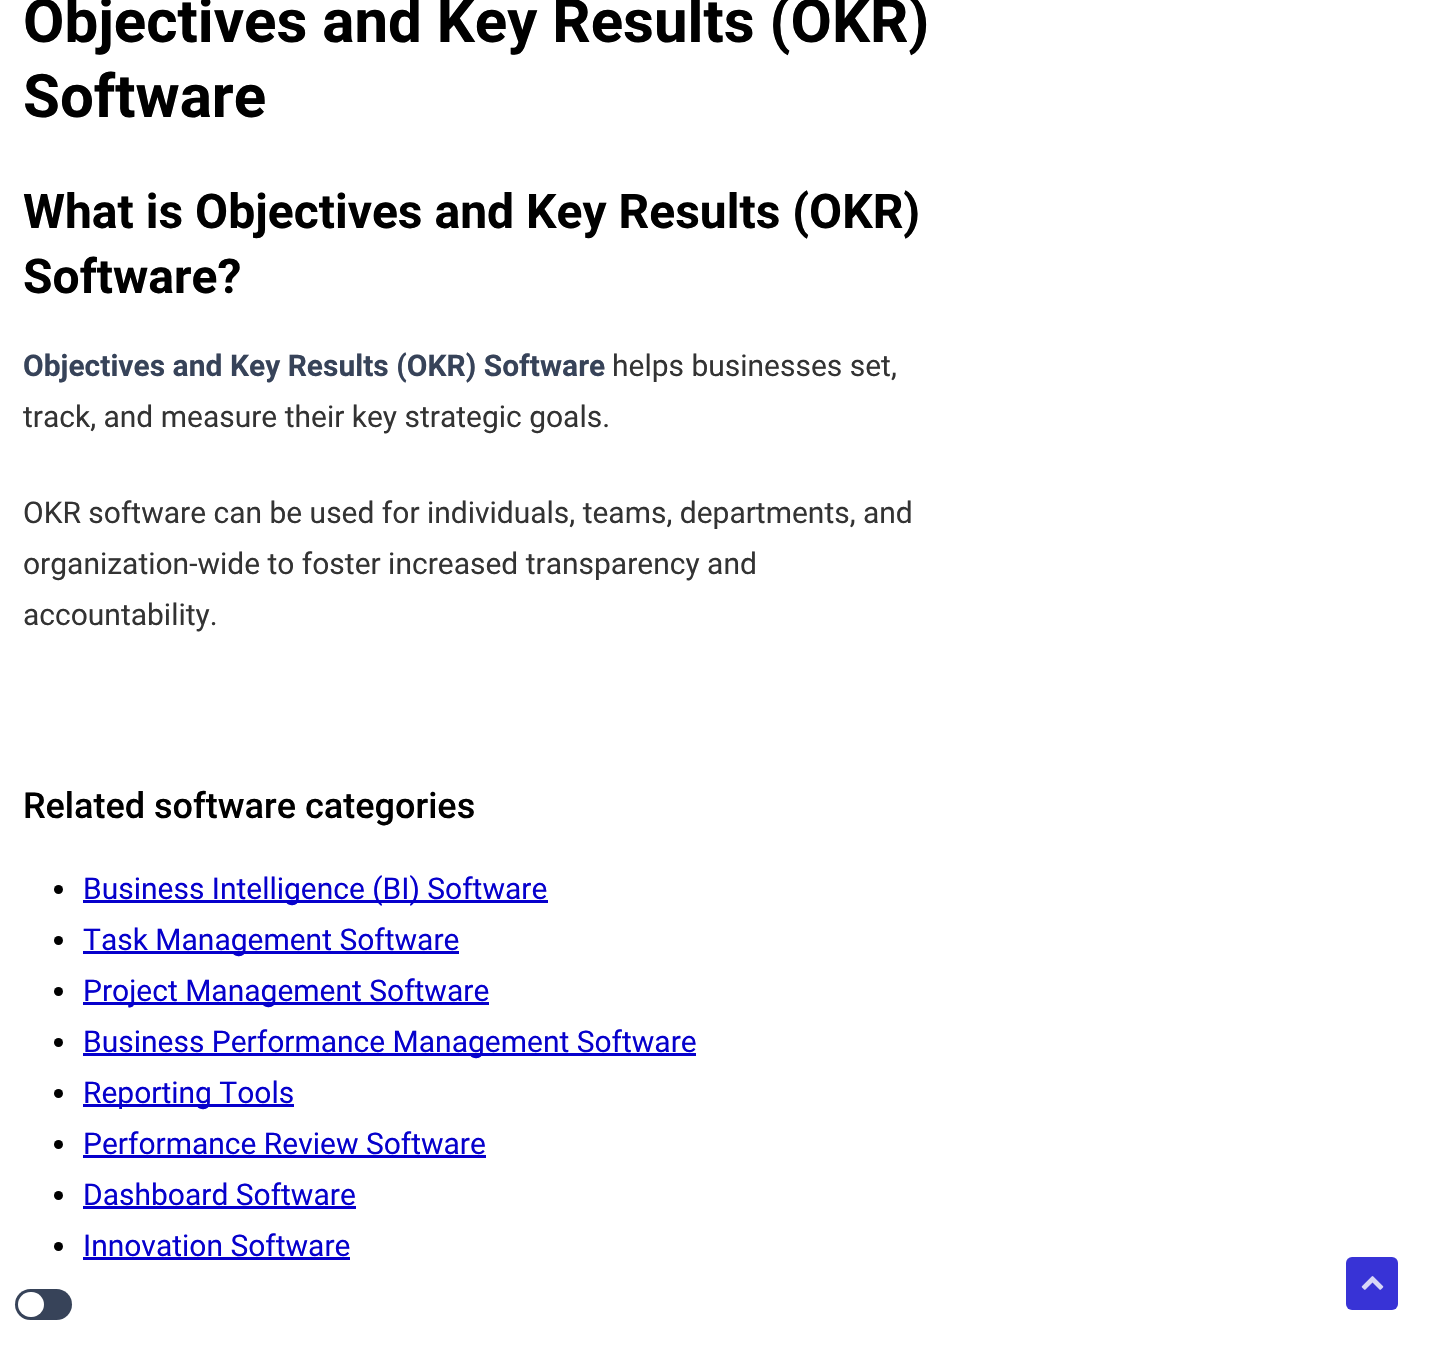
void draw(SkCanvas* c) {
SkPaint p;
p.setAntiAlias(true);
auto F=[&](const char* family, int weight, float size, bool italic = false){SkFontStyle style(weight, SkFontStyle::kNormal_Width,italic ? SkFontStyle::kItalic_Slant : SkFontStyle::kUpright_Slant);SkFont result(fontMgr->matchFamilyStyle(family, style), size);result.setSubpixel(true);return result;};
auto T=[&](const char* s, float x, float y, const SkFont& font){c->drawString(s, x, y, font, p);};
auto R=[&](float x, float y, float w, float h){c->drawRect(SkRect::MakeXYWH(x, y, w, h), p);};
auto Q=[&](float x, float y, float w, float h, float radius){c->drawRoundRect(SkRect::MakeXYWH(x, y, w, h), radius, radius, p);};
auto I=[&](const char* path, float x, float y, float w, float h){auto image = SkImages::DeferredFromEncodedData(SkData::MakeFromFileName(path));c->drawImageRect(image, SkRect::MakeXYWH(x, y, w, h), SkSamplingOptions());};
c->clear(0xffffffff);
auto f1 = F("Roboto",700,60);
p.setColor(0xff000000);
T("Objectives and Key Results (OKR)",23,42,f1);
T("Software",23,117,f1);
auto f2 = F("Roboto",700,48);
T("What is Objectives and Key Results (OKR)",23,228,f2);
T("Software?",23,293,f2);
auto f3 = F("Roboto",700,30);
p.setColor(0xff374359);
T("Objectives and Key Results (OKR) Software",23,376,f3);
auto f4 = F("Roboto",400,30);
p.setColor(0xff333333);
T("helps businesses set,",612,376,f4);
c->save();
c->clipRect(SkRect::MakeXYWH(23,0,916,1316));
T("track, and measure their key strategic goals.",23,427,f4);
c->restore();
T("OKR software can be used for individuals, teams, departments, and",23,523,f4);
T("organization-wide to foster increased transparency and",23,574,f4);
T("accountability.",23,625,f4);
auto f5 = F("Roboto",500,36);
p.setColor(0xff000000);
T("Related software categories",23,818,f5);
c->drawCircle(58.5,889.5,4.5,p);
p.setColor(0xff0600cc);
R(83,900,465,3);
T("Business Intelligence (BI) Software",83,899,f4);
p.setColor(0xff000000);
c->drawCircle(58.5,940.5,4.5,p);
p.setColor(0xff0600cc);
R(83,951,376,3);
T("Task Management Software",83,950,f4);
p.setColor(0xff000000);
c->drawCircle(58.5,991.5,4.5,p);
p.setColor(0xff0600cc);
R(83,1002,406,3);
T("Project Management Software",83,1001,f4);
p.setColor(0xff000000);
c->drawCircle(58.5,1042.5,4.5,p);
p.setColor(0xff0600cc);
R(83,1053,613,3);
T("Business Performance Management Software",83,1052,f4);
p.setColor(0xff000000);
c->drawCircle(58.5,1093.5,4.5,p);
p.setColor(0xff0600cc);
R(83,1104,211,3);
T("Reporting Tools",83,1103,f4);
p.setColor(0xff000000);
c->drawCircle(58.5,1144.5,4.5,p);
p.setColor(0xff0600cc);
T("Performance Review Software",83,1154,f4);
R(83,1155,403,3);
p.setColor(0xff000000);
c->drawCircle(58.5,1195.5,4.5,p);
p.setColor(0xff0600cc);
T("Dashboard Software",83,1205,f4);
R(83,1206,273,3);
p.setColor(0xff000000);
c->drawCircle(58.5,1246.5,4.5,p);
p.setColor(0xff0600cc);
T("Innovation Software",83,1256,f4);
R(83,1257,267,3);
p.setColor(0xff374359);
Q(15,1289,57,31,15.5);
p.setColor(0xffffffff);
Q(18,1292,26,25,12.5);
p.setColor(0xff3833d6);
Q(1346,1257,52,53,6);
I("1.png",1361,1276,23,14);
}
